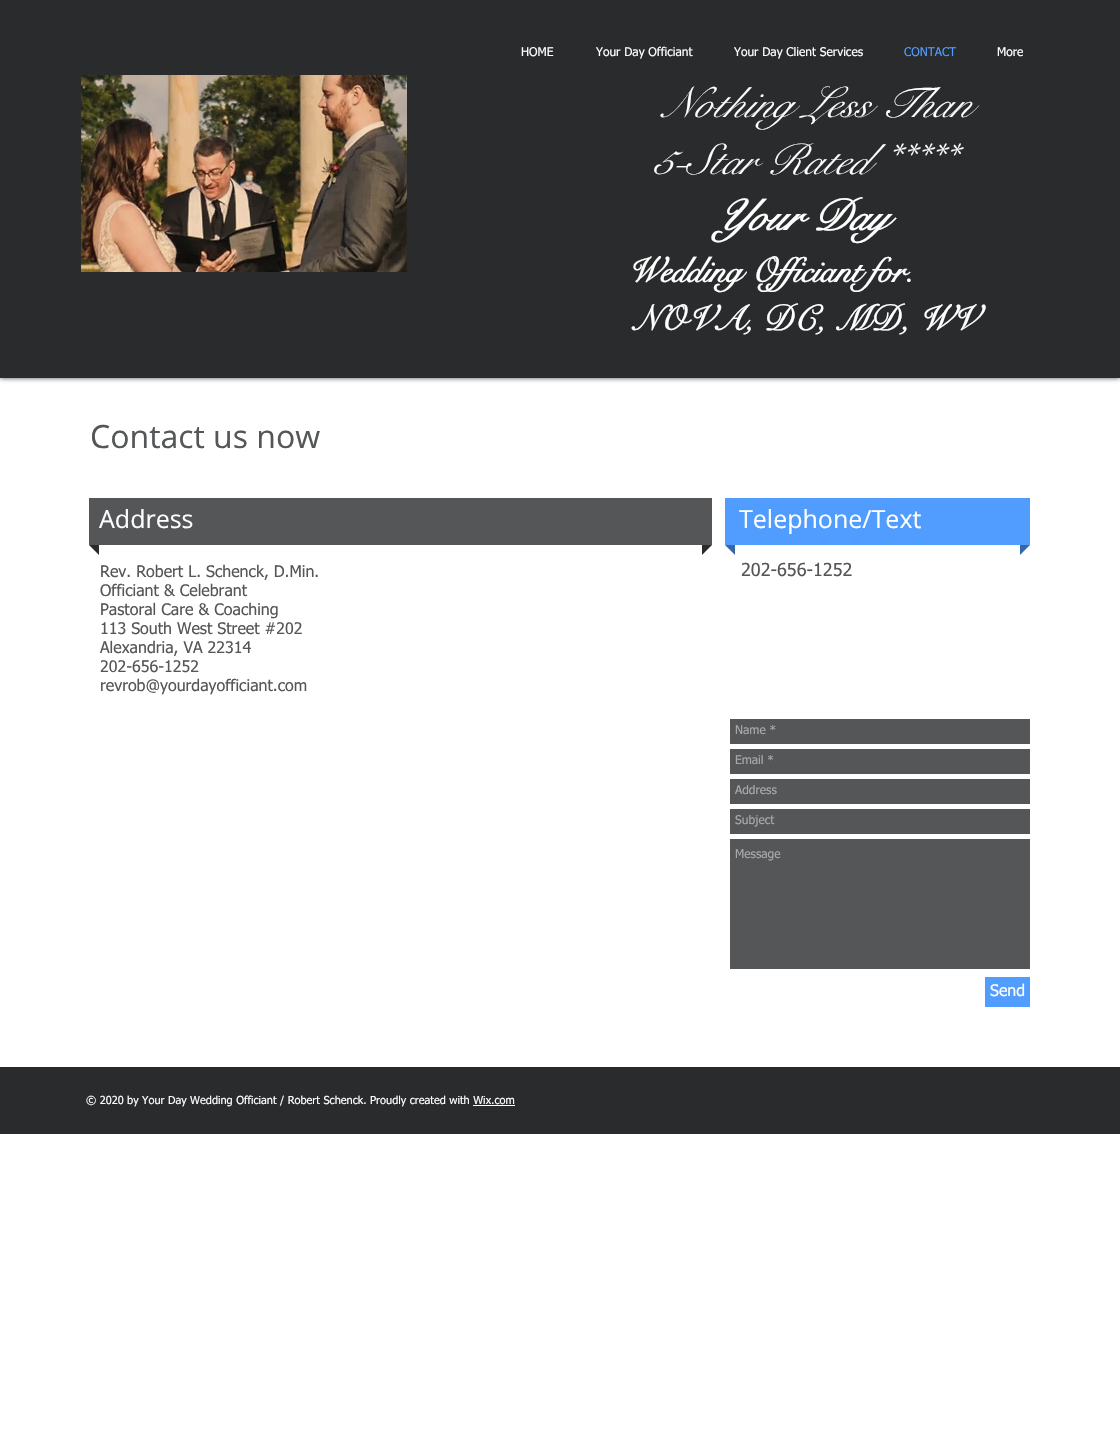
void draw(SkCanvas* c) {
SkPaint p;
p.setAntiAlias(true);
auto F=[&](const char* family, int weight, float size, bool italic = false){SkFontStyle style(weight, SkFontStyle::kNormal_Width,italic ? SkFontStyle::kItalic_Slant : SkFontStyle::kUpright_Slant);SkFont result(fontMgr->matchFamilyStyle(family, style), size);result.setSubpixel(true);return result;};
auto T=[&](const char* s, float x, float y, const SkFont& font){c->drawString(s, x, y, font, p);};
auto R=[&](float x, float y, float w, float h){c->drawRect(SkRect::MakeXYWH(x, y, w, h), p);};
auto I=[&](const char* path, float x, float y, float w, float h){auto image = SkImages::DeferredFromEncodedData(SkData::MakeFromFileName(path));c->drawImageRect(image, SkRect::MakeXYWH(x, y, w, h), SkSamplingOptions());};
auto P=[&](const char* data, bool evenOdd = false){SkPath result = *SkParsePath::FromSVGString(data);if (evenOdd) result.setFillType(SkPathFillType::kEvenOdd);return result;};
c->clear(0xffffffff);
p.setColor(0xb3000000);
p.setMaskFilter(SkMaskFilter::MakeBlur(kNormal_SkBlurStyle, 2.5));
c->drawRect(SkRect::MakeXYWH(0,0,1120,378),p);
p.setMaskFilter(nullptr);
p.setColor(0xff2a2b2c);
R(0,0,1120,378);
auto f1 = F("tahoma",400,12);
p.setColor(0xffffffff);
T("HOME",521,56,f1);
T("Your Day Officiant",596,56,f1);
T("Your Day Client Services",734,56,f1);
p.setColor(0xff519cff);
T("CONTACT",904,56,f1);
p.setColor(0xffffffff);
T("More",997,56,f1);
I("1.png",81,75,326,197);
auto f2 = F("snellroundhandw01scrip",400,43,true);
T("Nothing Less Than",663,117,f2);
T("5-Star Rated *****",650,174,f2);
auto f3 = F("snellroundhandw01scrip",700,43,true);
T("Your Day",714,230,f3);
auto f4 = F("snellroundhandw01scrip",700,35);
T("Wedding Officiant for.",627,282,f4);
T("NOVA, DC, MD, WV",634,330,f4);
auto f5 = F("Open Sans",400,32);
p.setColor(0xff545658);
T("Contact us now",90,448,f5);
R(89,498,623,47);
auto f6 = F("Open Sans",400,25);
p.setColor(0xffffffff);
T("Address",99,528,f6);
p.setColor(0xff2a2b2c);
c->drawPath(P("M89 545h10v10z"),p);
c->drawPath(P("M702 545h10l-10 10z"),p);
p.setColor(0xff519cff);
R(725,498,305,47);
p.setColor(0xffffffff);
T("Telephone/Text",739,528,f6);
p.setColor(0xff3668a9);
c->drawPath(P("M725 545h10v10z"),p);
c->drawPath(P("M1020 545h10l-10 10z"),p);
auto f7 = F("tahoma",400,16);
p.setColor(0xff545658);
T("Rev. Robert L. Schenck, D.Min.",100,577,f7);
T("Officiant & Celebrant",100,596,f7);
T("Pastoral Care & Coaching",100,615,f7);
T("113 South West Street #202",100,634,f7);
T("Alexandria, VA 22314",100,653,f7);
T("202-656-1252",100,672,f7);
T("revrob@yourdayofficiant.com",100,691,f7);
auto f8 = F("tahoma",400,18);
T("202-656-1252",741,576,f8);
R(730,719,300,25);
p.setColor(0xffa9a9a9);
T("Name *",735,734,f1);
p.setColor(0xff545658);
R(730,749,300,25);
p.setColor(0xffa9a9a9);
T("Email *",735,764,f1);
p.setColor(0xff545658);
R(730,779,300,25);
p.setColor(0xffa9a9a9);
T("Address",735,794,f1);
p.setColor(0xff545658);
R(730,809,300,25);
p.setColor(0xffa9a9a9);
T("Subject",735,824,f1);
p.setColor(0xff545658);
R(730,839,300,130);
p.setColor(0xffa9a9a9);
T("Message",735,858,f1);
p.setColor(0xff519cff);
R(985,977,45,30);
p.setColor(0xffffffff);
T("Send",990,996,f7);
p.setColor(0xff2a2b2c);
R(0,1067,1120,67);
auto f9 = F("tahoma",400,11);
p.setColor(0xffffffff);
T("© 2020 by Your Day Wedding Officiant / Robert Schenck. Proudly created with Wix.com",86,1104,f9);
R(473,1105,42,1);
}
